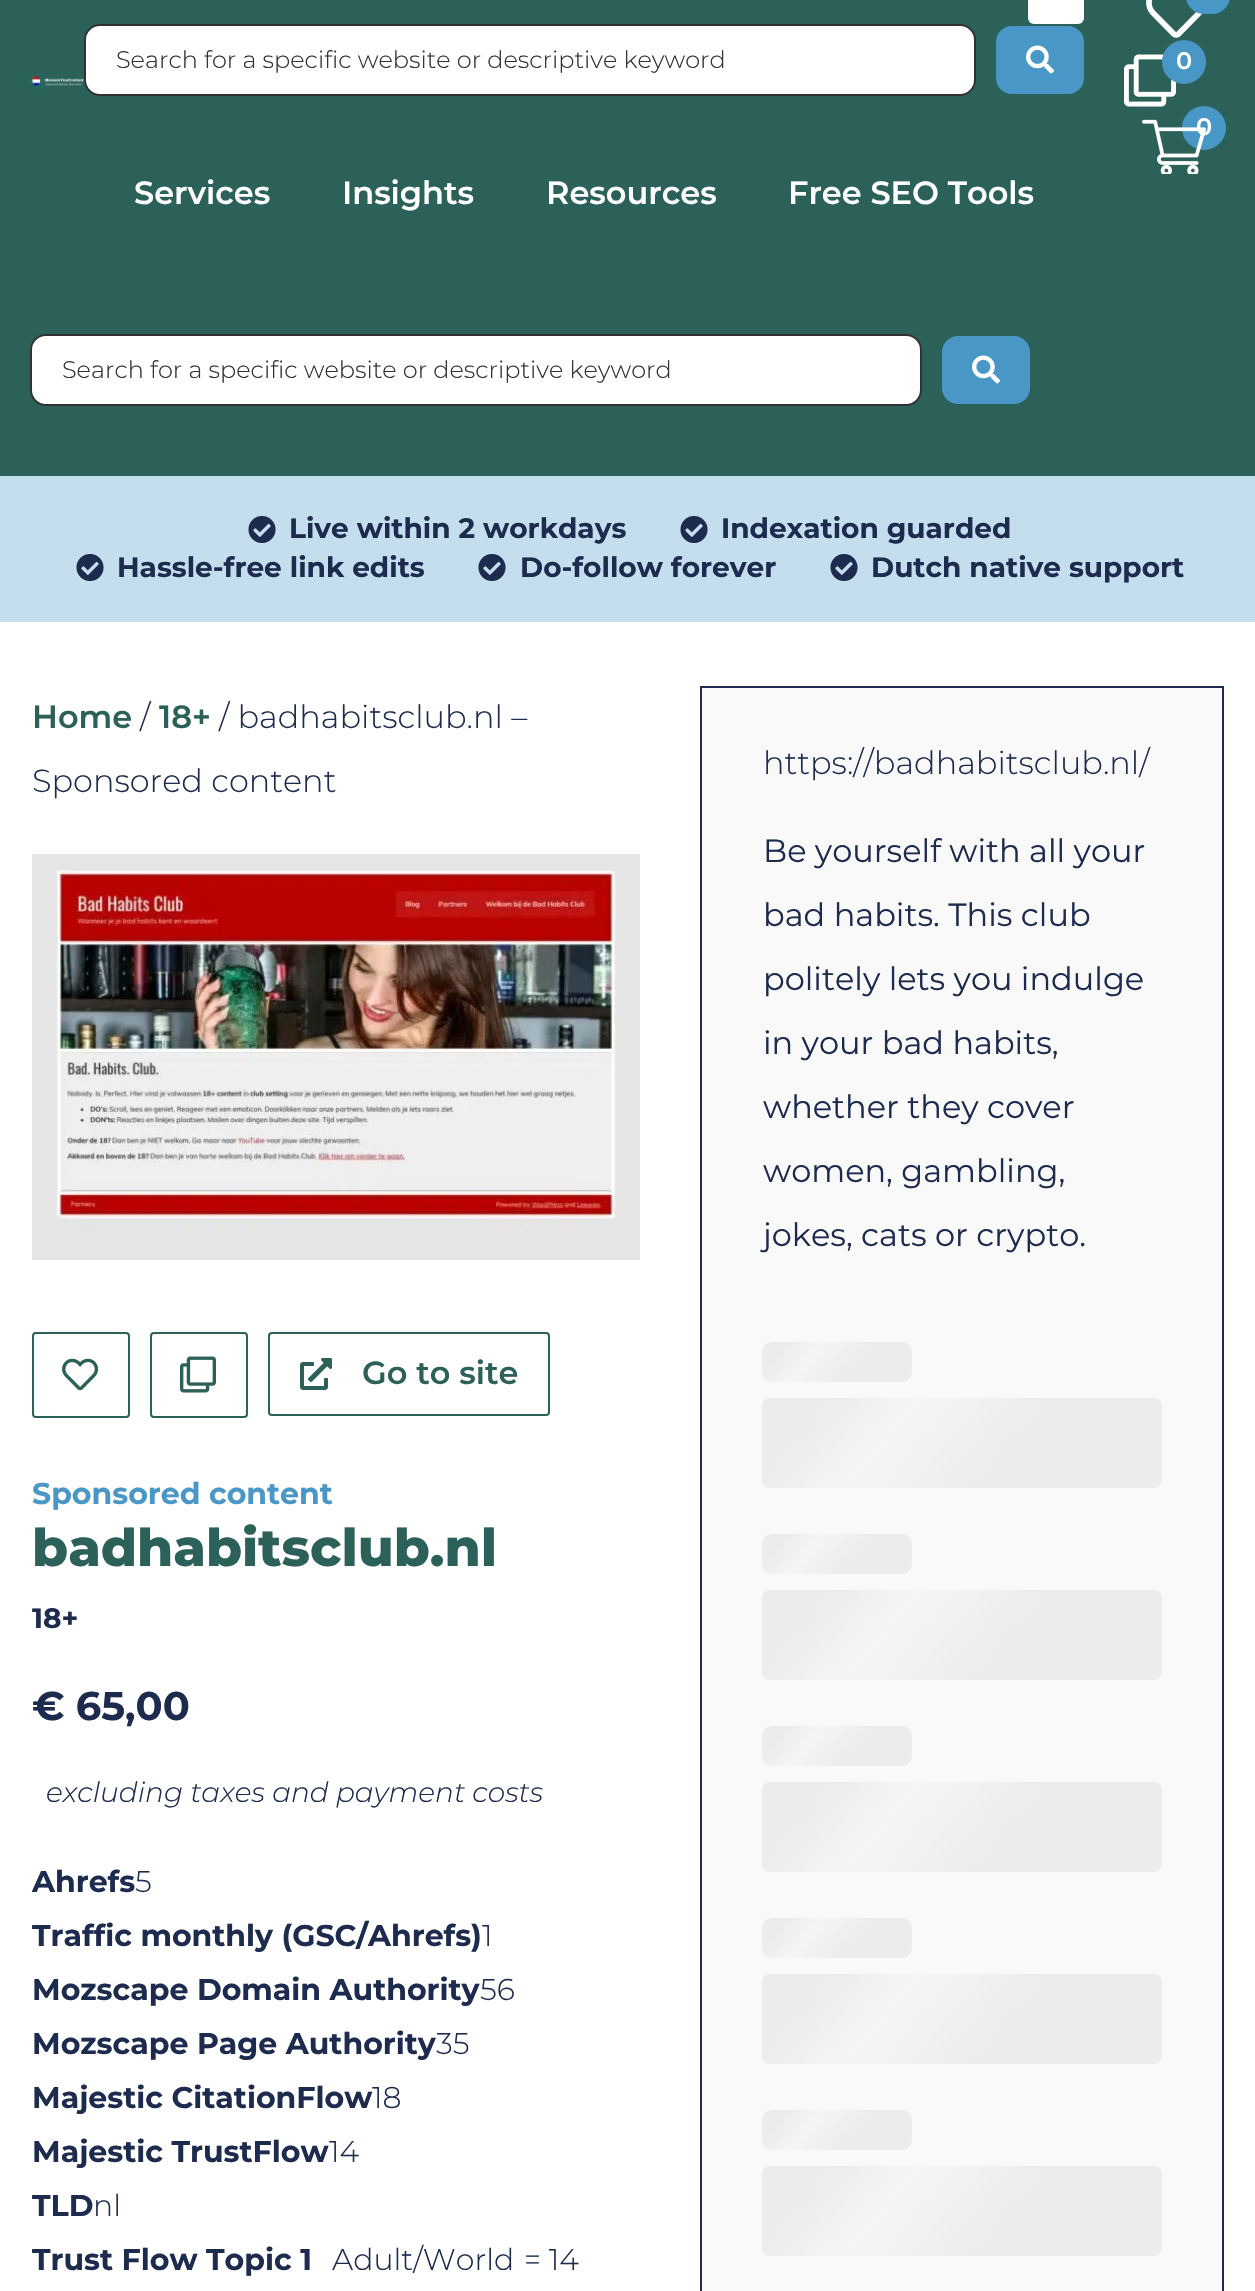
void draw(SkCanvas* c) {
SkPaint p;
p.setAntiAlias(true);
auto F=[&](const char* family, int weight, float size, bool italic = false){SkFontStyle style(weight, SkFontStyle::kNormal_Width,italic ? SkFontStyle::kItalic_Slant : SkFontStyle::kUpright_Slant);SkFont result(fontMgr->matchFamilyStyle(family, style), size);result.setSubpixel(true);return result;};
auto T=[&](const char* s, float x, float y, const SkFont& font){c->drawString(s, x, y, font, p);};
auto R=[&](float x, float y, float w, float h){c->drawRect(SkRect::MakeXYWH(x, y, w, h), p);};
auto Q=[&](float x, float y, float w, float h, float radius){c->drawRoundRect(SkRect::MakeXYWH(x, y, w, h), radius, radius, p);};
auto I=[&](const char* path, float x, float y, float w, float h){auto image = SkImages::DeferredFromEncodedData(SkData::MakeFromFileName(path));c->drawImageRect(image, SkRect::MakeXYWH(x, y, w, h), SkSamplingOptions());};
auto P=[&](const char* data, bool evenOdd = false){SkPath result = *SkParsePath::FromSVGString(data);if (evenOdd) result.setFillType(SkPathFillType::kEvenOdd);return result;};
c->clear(0xffffffff);
p.setColor(0xff2c6159);
R(0,0,1255,174);
I("1.png",30,74,54,16);
p.setColor(0xffffffff);
Q(1028,-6,56,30,6);
c->drawRoundRect(SkRect::MakeXYWH(85,25,890,70),15,15,p);
p.setStroke(true);
p.setStrokeWidth(2);
p.setColor(0xff313131);
c->drawRoundRect(SkRect::MakeXYWH(85,25,890,70),15,15,p);
auto f1 = F("Montserrat",300,24);
p.setStroke(false);
T("Search for a specific website or descriptive keyword",116,68,f1);
p.setColor(0xff4897c6);
Q(996,26,88,68,16);
I("2.png",1026,45,28,29);
p.setColor(0xff2c6159);
c->drawPath(P("M0 174h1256v300c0 1-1 2-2 2h-1254z"),p);
auto f2 = F("Montserrat",600,32);
p.setColor(0xffffffff);
T("Services",134,204,f2);
T("Insights",342,204,f2);
T("Resources",546,204,f2);
T("Free SEO Tools",788,204,f2);
I("3.png",1146,0,57,38);
p.setColor(0xff4897c6);
Q(1186,-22,44,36,22);
I("4.png",1124,54,52,53);
c->drawCircle(1184,62,22,p);
auto f3 = F("Montserrat",600,24);
p.setColor(0xffffffff);
T("0",1176,69,f3);
p.setColor(0xff4897c6);
c->drawCircle(1204,128,22,p);
p.setColor(0xffffffff);
T("0",1196,135,f3);
I("5.png",1142,119,64,55);
c->drawRoundRect(SkRect::MakeXYWH(31,335,890,70),15,15,p);
p.setStroke(true);
p.setColor(0xff313131);
c->drawRoundRect(SkRect::MakeXYWH(31,335,890,70),15,15,p);
p.setStroke(false);
T("Search for a specific website or descriptive keyword",62,378,f1);
p.setColor(0xff4897c6);
Q(942,336,88,68,16);
I("2.png",972,355,28,29);
p.setColor(0xffc5deed);
R(0,476,1255,146);
I("6.png",248,516,28,27);
auto f4 = F("Montserrat",700,28);
p.setColor(0xff1d2b4f);
T("Live within 2 workdays",289,538,f4);
I("6.png",680,516,28,27);
T("Indexation guarded",721,538,f4);
I("6.png",76,554,28,27);
T("Hassle-free link edits",117,577,f4);
I("6.png",478,554,28,27);
T("Do-follow forever",520,577,f4);
I("6.png",830,554,28,27);
T("Dutch native support",871,577,f4);
p.setColor(0xff2c6159);
T("Home",32,728,f2);
auto f5 = F("Montserrat",300,32);
p.setColor(0xff1d2b4f);
T("/",140,728,f5);
p.setColor(0xff2c6159);
T("18+",159,728,f2);
p.setColor(0xff1d2b4f);
T("/ badhabitsclub.nl –",219,728,f5);
T("Sponsored content",32,792,f5);
I("7.png",32,854,608,406);
p.setStroke(true);
p.setColor(0xff2c6159);
c->drawRoundRect(SkRect::MakeXYWH(33,1333,96,84),3,3,p);
I("8.png",62,1358,37,33);
c->drawRoundRect(SkRect::MakeXYWH(151,1333,96,84),3,3,p);
I("9.png",180,1356,36,37);
c->drawRoundRect(SkRect::MakeXYWH(269,1333,280,82),3,3,p);
I("10.png",300,1358,32,32);
p.setStroke(false);
T("Go to site",362,1384,f2);
auto f6 = F("Montserrat",700,30);
p.setColor(0xff4897c6);
T("Sponsored content",32,1504,f6);
auto f7 = F("Montserrat",800,52);
p.setColor(0xff2c6159);
T("badhabitsclub.nl",32,1566,f7);
p.setColor(0xff1d2b4f);
T("18+",32,1628,f4);
auto f8 = F("Montserrat",700,40);
T("€ 65,00",32,1720,f8);
auto f9 = F("Montserrat",300,28,true);
T("excluding taxes and payment costs",46,1802,f9);
T("Ahrefs",32,1892,f6);
auto f10 = F("Montserrat",300,30);
T("5",135,1892,f10);
T("Traffic monthly (GSC/Ahrefs)",32,1946,f6);
T("1",482,1946,f10);
T("Mozscape Domain Authority",32,2000,f6);
T("56",480,2000,f10);
T("Mozscape Page Authority",32,2054,f6);
T("35",436,2054,f10);
T("Majestic CitationFlow",32,2108,f6);
T("18",372,2108,f10);
T("Majestic TrustFlow",32,2162,f6);
T("14",329,2162,f10);
T("TLD",32,2216,f6);
T("nl",93,2216,f10);
T("Trust Flow Topic 1",32,2270,f6);
T("Adult/World",332,2270,f10);
T("= 14",524,2270,f10);
p.setColor(0xfff9f9f9);
c->drawRect(SkRect::MakeXYWH(701,687,522,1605),p);
p.setStroke(true);
p.setColor(0xff1d2b4f);
c->drawRect(SkRect::MakeXYWH(701,687,522,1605),p);
p.setStroke(false);
T("https://badhabitsclub.nl/",763,774,f5);
auto f11 = F("Montserrat",400,32);
T("Be yourself with all your",763,862,f11);
T("bad habits. This club",763,926,f11);
T("politely lets you indulge",763,990,f11);
T("in your bad habits,",763,1054,f11);
T("whether they cover",763,1118,f11);
T("women, gambling,",763,1182,f11);
T("jokes, cats or crypto.",763,1246,f11);
{
const SkColor colors[] = {0xffececec,0xfff5f5f5,0xffececec};
const float stops[] = {.08,.18,.33};
const SkPoint ends[] = {{814,1280}, {1010,1444}};
p.setShader(SkGradientShader::MakeLinear(ends, colors, stops, 3, SkTileMode::kClamp));
p.setAlpha(255);
}
Q(762,1342,150,40,10);
{
const SkColor colors[] = {0xffececec,0xfff5f5f5,0xffececec};
const float stops[] = {.08,.18,.33};
const SkPoint ends[] = {{905,1227}, {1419,1659}};
p.setShader(SkGradientShader::MakeLinear(ends, colors, stops, 3, SkTileMode::kClamp));
p.setAlpha(255);
}
Q(762,1398,400,90,8);
{
const SkColor colors[] = {0xffececec,0xfff5f5f5,0xffececec};
const float stops[] = {.08,.18,.33};
const SkPoint ends[] = {{814,1472}, {1010,1636}};
p.setShader(SkGradientShader::MakeLinear(ends, colors, stops, 3, SkTileMode::kClamp));
p.setAlpha(255);
}
Q(762,1534,150,40,10);
{
const SkColor colors[] = {0xffececec,0xfff5f5f5,0xffececec};
const float stops[] = {.08,.18,.33};
const SkPoint ends[] = {{905,1419}, {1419,1851}};
p.setShader(SkGradientShader::MakeLinear(ends, colors, stops, 3, SkTileMode::kClamp));
p.setAlpha(255);
}
Q(762,1590,400,90,8);
{
const SkColor colors[] = {0xffececec,0xfff5f5f5,0xffececec};
const float stops[] = {.08,.18,.33};
const SkPoint ends[] = {{814,1664}, {1010,1828}};
p.setShader(SkGradientShader::MakeLinear(ends, colors, stops, 3, SkTileMode::kClamp));
p.setAlpha(255);
}
Q(762,1726,150,40,10);
{
const SkColor colors[] = {0xffececec,0xfff5f5f5,0xffececec};
const float stops[] = {.08,.18,.33};
const SkPoint ends[] = {{905,1611}, {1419,2043}};
p.setShader(SkGradientShader::MakeLinear(ends, colors, stops, 3, SkTileMode::kClamp));
p.setAlpha(255);
}
Q(762,1782,400,90,8);
{
const SkColor colors[] = {0xffececec,0xfff5f5f5,0xffececec};
const float stops[] = {.08,.18,.33};
const SkPoint ends[] = {{814,1856}, {1010,2020}};
p.setShader(SkGradientShader::MakeLinear(ends, colors, stops, 3, SkTileMode::kClamp));
p.setAlpha(255);
}
Q(762,1918,150,40,10);
{
const SkColor colors[] = {0xffececec,0xfff5f5f5,0xffececec};
const float stops[] = {.08,.18,.33};
const SkPoint ends[] = {{905,1803}, {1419,2235}};
p.setShader(SkGradientShader::MakeLinear(ends, colors, stops, 3, SkTileMode::kClamp));
p.setAlpha(255);
}
Q(762,1974,400,90,8);
{
const SkColor colors[] = {0xffececec,0xfff5f5f5,0xffececec};
const float stops[] = {.08,.18,.33};
const SkPoint ends[] = {{814,2048}, {1010,2212}};
p.setShader(SkGradientShader::MakeLinear(ends, colors, stops, 3, SkTileMode::kClamp));
p.setAlpha(255);
}
Q(762,2110,150,40,10);
{
const SkColor colors[] = {0xffececec,0xfff5f5f5,0xffececec};
const float stops[] = {.08,.18,.33};
const SkPoint ends[] = {{905,1995}, {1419,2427}};
p.setShader(SkGradientShader::MakeLinear(ends, colors, stops, 3, SkTileMode::kClamp));
p.setAlpha(255);
}
Q(762,2166,400,90,8);
}
